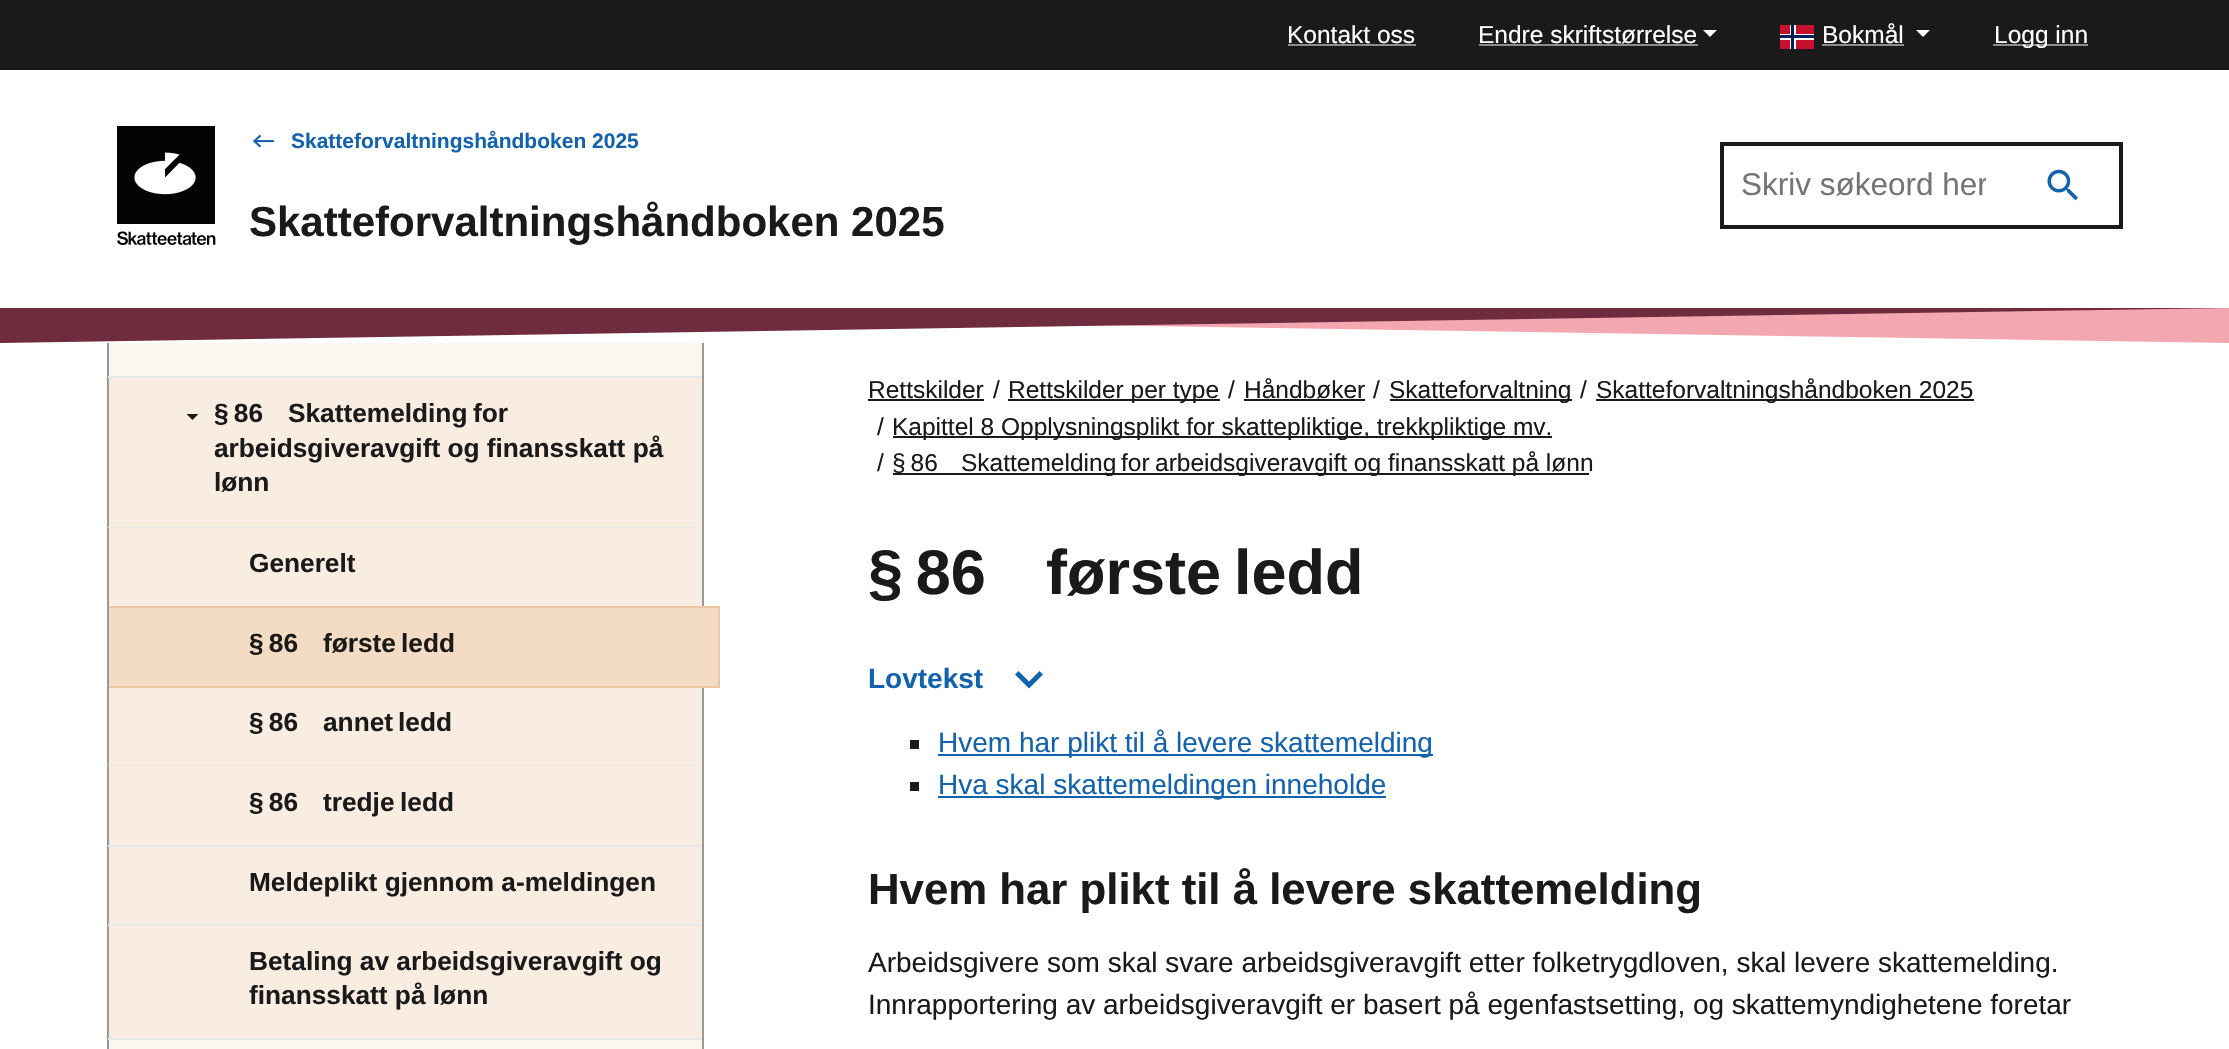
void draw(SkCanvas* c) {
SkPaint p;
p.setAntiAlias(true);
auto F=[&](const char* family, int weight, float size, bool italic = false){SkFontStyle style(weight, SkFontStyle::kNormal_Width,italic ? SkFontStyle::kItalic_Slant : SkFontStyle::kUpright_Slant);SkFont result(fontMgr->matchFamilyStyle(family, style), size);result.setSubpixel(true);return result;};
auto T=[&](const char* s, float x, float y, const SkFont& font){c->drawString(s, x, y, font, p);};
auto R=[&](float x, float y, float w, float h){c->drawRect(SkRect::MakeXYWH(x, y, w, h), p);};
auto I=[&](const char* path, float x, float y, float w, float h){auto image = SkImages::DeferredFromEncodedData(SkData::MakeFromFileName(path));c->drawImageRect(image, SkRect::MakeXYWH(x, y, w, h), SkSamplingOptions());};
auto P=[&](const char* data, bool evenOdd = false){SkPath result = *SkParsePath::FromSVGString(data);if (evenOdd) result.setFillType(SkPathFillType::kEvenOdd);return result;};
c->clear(0xffffffff);
p.setColor(0xff1a1a1a);
R(0,0,2229,70);
auto f1 = F("Liberation Sans",400,24.5);
p.setColor(0xffffffff);
T("Kontakt oss",1287,43,f1);
p.setColor(0xff8d8d8d);
R(1288,44,128,2);
p.setColor(0xffffffff);
T("Endre skriftstørrelse",1478,43,f1);
p.setColor(0xff8d8d8d);
R(1479,44,219,2);
p.setColor(0xffffffff);
c->drawPath(P("M1703 30h14l-7 7z"),p);
p.setColor(0xffc8102e);
R(1780,25,34,24);
p.setColor(0xffffffff);
T("Bokmål",1822,43,f1);
p.setColor(0xff8d8d8d);
R(1822,44,82,2);
p.setColor(0xffffffff);
R(1790,25,6,24);
R(1780,34,34,6);
p.setColor(0xff00205b);
R(1791,25,3,24);
p.setColor(0xffffffff);
c->drawPath(P("M1916 30h14l-7 7z"),p);
p.setColor(0xff00205b);
R(1780,35,34,3);
p.setColor(0xff8d8d8d);
R(1993,44,95,2);
p.setColor(0xffffffff);
T("Logg inn",1994,43,f1);
I("1.png",117,126,99,119);
I("2.png",252,134,22,14);
auto f2 = F("Liberation Sans",700,21);
p.setColor(0xff1362ae);
T("Skatteforvaltningshåndboken 2025",291,148,f2);
auto f3 = F("Liberation Sans",700,42);
p.setColor(0xff1a1a1a);
T("Skatteforvaltningshåndboken 2025",249,236,f3);
p.setStroke(true);
p.setStrokeWidth(4);
c->drawRect(SkRect::MakeXYWH(1722,144,399,83),p);
c->save();
c->clipRect(SkRect::MakeXYWH(1741,168,245,37));
auto f4 = F("Liberation Sans",400,31.5);
p.setStroke(false);
p.setColor(0xff757575);
T("Skriv søkeord her",1741,195,f4);
c->restore();
I("3.png",2047,169,31,32);
p.setColor(0xfff3a7b0);
c->drawPath(P("M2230 308v35l-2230-35z"),p);
p.setColor(0xff6f2c3f);
c->drawPath(P("M0 308v35l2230-35z"),p);
p.setColor(0xff999999);
R(107,343,2,706);
R(702,343,2,706);
p.setColor(0xfffcf6f0);
R(109,343,593,706);
p.setColor(0xfff9ede2);
R(109,376,593,664);
p.setColor(0xffe8e8e8);
c->drawPath(P("M108 376h594l-2 2h-592z"),p);
p.setColor(0xff1a1a1a);
c->drawPath(P("M186.5 414l6 6l6-6z"),p);
auto f5 = F("Liberation Sans",700,26.25);
T("§ 8‑6",214,422,f5);
T("Skattemelding",288,422,f5);
T("for",473,422,f5);
T("arbeidsgiveravgift og finansskatt på",214,457,f5);
T("lønn",214,491,f5);
p.setColor(0xffe8e8e8);
c->drawPath(P("M108 527h594l-2 1h-592z"),p);
p.setColor(0xff1a1a1a);
T("Generelt",249,572,f5);
p.setColor(0xfff3dbc4);
R(109,608,609,78);
p.setColor(0xffecc7a3);
R(109,606,610,2);
R(718,606,2,82);
R(109,686,610,2);
p.setColor(0xff1a1a1a);
T("§ 8‑6",249,652,f5);
T("første",323,652,f5);
T("ledd",401,652,f5);
T("§ 8‑6",249,731,f5);
T("annet",323,731,f5);
T("ledd",398,731,f5);
p.setColor(0xffe8e8e8);
c->drawPath(P("M108 765h594l-2 1h-592z"),p);
p.setColor(0xff1a1a1a);
T("§ 8‑6",249,811,f5);
T("tredje",323,811,f5);
T("ledd",400,811,f5);
p.setColor(0xffe8e8e8);
c->drawPath(P("M108 845h594l-2 2h-592z"),p);
p.setColor(0xff1a1a1a);
T("Meldeplikt gjennom a-meldingen",249,891,f5);
p.setColor(0xffe8e8e8);
c->drawPath(P("M108 924h594l-2 2h-592z"),p);
p.setColor(0xff1a1a1a);
T("Betaling av arbeidsgiveravgift og",249,970,f5);
T("finansskatt på lønn",249,1004,f5);
p.setColor(0xffe8e8e8);
c->drawPath(P("M108 1038h594l-2 2h-592z"),p);
p.setColor(0xff1a1a1a);
T("Rettskilder",868,398,f1);
R(868,399,116,2);
T("/",993,398,f1);
R(1008,399,212,2);
T("Rettskilder per type",1008,398,f1);
T("/",1228,398,f1);
T("Håndbøker",1244,398,f1);
R(1244,399,121,2);
T("/",1373,398,f1);
R(1390,399,182,2);
T("Skatteforvaltning",1389,398,f1);
T("/",1580,398,f1);
R(1596,399,378,2);
T("Skatteforvaltningshåndboken 2025",1596,398,f1);
T("/",877,435,f1);
R(893,436,659,2);
T("Kapittel 8 Opplysningsplikt for skattepliktige, trekkpliktige mv.",892,435,f1);
T("/",877,471,f1);
R(893,473,696,2);
T("§ 8‑6",892,471,f1);
T("Skattemelding",961,471,f1);
T("for",1121,471,f1);
T("arbeidsgiveravgift og finansskatt på lønn",1155,471,f1);
auto f6 = F("Liberation Sans",700,63);
T("§ 8‑6",868,594,f6);
T("første",1046,594,f6);
T("ledd",1234,594,f6);
auto f7 = F("Liberation Sans",700,28);
p.setColor(0xff1362ae);
T("Lovtekst",868,688,f7);
c->drawPath(P("M1018.5 671l10.5 10.5l10.5-10.5l3.5 3.5l-14 14l-14-14z"),p);
p.setColor(0xff1a1a1a);
R(910,740,9,9);
p.setColor(0xff1362ae);
R(938,754,495,2);
auto f8 = F("Liberation Sans",400,28);
T("Hvem har plikt til å levere skattemelding",938,752,f8);
p.setColor(0xff1a1a1a);
R(910,782,9,9);
p.setColor(0xff1362ae);
R(938,796,448,2);
T("Hva skal skattemeldingen inneholde",938,794,f8);
auto f9 = F("Liberation Sans",700,43.75);
p.setColor(0xff1a1a1a);
T("Hvem har plikt til å levere skattemelding",868,904,f9);
T("Arbeidsgivere som skal svare arbeidsgiveravgift etter folketrygdloven, skal levere skattemelding.",868,972,f8);
T("Innrapportering av arbeidsgiveravgift er basert på egenfastsetting, og skattemyndighetene foretar",868,1014,f8);
}
